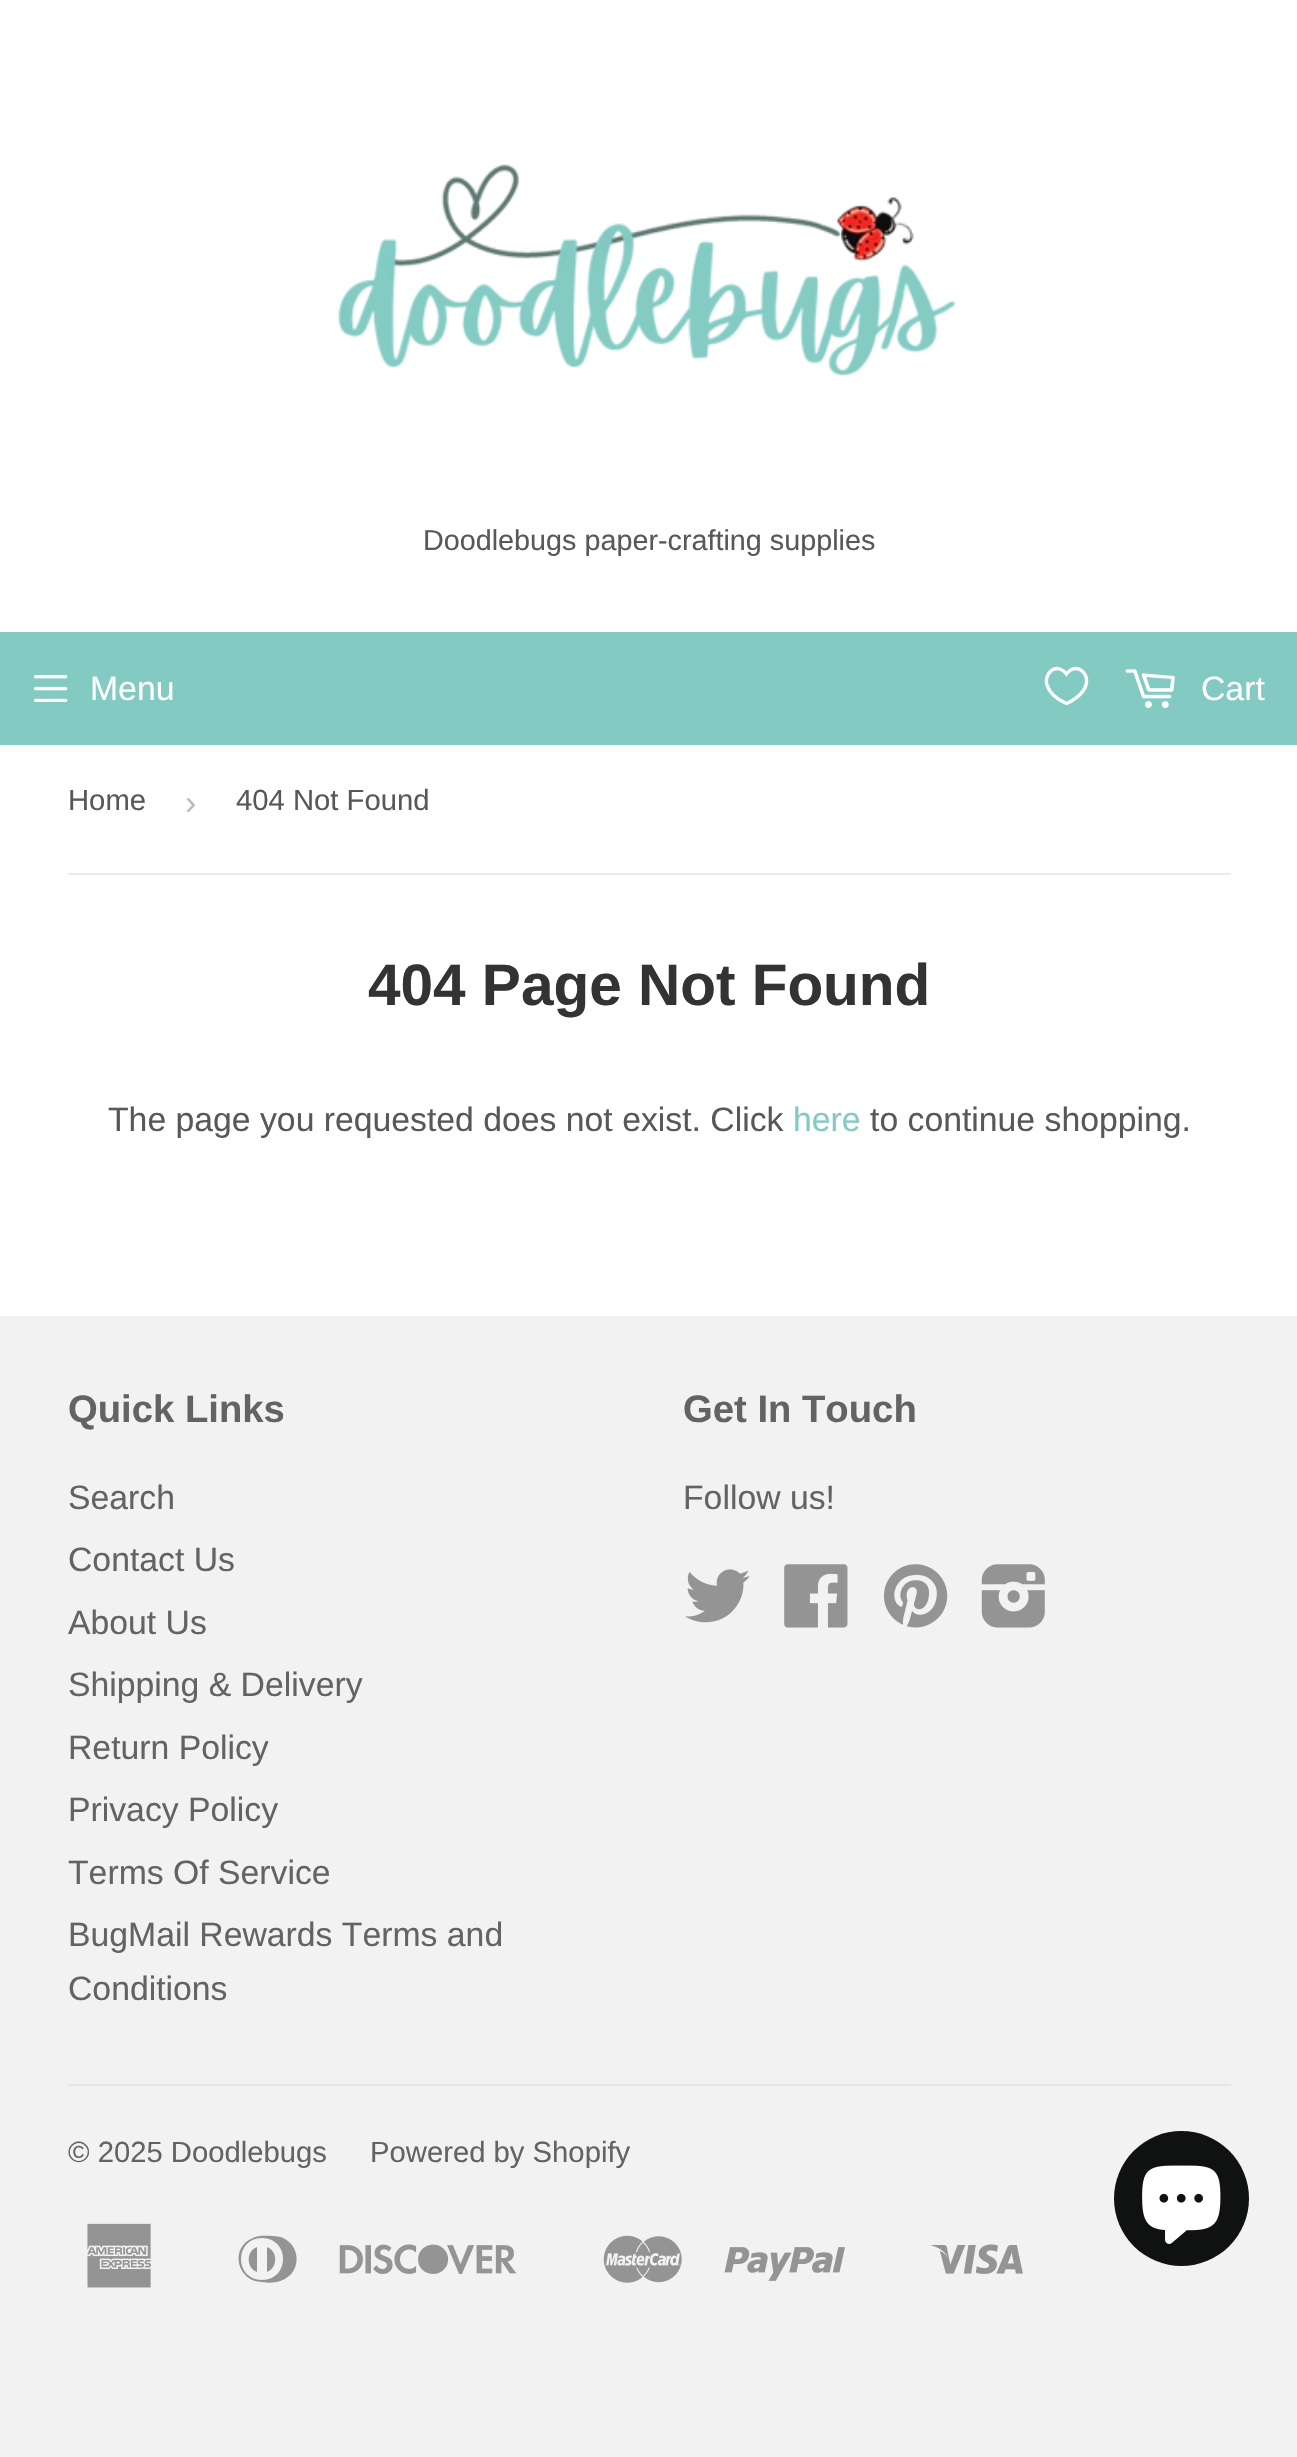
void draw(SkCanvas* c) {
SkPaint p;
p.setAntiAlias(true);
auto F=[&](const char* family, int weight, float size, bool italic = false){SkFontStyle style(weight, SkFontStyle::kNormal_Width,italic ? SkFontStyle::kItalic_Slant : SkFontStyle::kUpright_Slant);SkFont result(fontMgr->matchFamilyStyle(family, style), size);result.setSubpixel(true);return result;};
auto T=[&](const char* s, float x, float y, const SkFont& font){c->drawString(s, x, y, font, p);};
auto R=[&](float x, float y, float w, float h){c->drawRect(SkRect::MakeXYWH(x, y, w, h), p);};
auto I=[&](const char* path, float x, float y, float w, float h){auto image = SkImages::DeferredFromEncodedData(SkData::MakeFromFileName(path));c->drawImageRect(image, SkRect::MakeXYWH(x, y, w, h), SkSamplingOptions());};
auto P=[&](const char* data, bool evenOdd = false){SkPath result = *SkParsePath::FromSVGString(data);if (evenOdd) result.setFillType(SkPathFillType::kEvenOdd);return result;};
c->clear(0xfff2f2f2);
p.setColor(0xffffffff);
R(0,0,1297,1316);
I("1.png",338,164,617,212);
auto f1 = F("Liberation Sans",400,28.75);
p.setColor(0xff585858);
T("Doodlebugs paper-crafting supplies",423,550,f1);
p.setColor(0xff83cac3);
R(0,632,1297,113);
I("2.png",34,675,34,27);
auto f2 = F("Liberation Sans",400,33.75);
p.setColor(0xffffffff);
T("Menu",90,700,f2);
p.setStroke(true);
p.setStrokeWidth(3.4);
c->drawPath(P("M1066.5 703.5c-8-3.5-17-10-19.5-18.5c-2.5-9 4.5-19.5 14-15.5c2.5 1 4 2.5 5.5 4.5c1.5-2 3-3.5 5-4.5c8.5-3.5 16 4.5 15 13c-1.5 10-11.5 17-20 21z"),p);
I("3.png",1125,669,50,39);
p.setStroke(false);
T("Cart",1201,700,f2);
p.setColor(0xffececec);
R(68,873,1163,2);
auto f3 = F("Liberation Sans",400,29.25);
p.setColor(0xff585858);
T("Home",68,810,f3);
p.setColor(0xffbbbbbb);
T("›",185,814,f2);
p.setColor(0xff585858);
T("404 Not Found",236,810,f3);
auto f4 = F("Liberation Sans",700,58.5);
p.setColor(0xff333333);
T("404 Page Not Found",368,1005,f4);
p.setColor(0xff585858);
T("The page you requested does not exist. Click",108,1131,f2);
p.setColor(0xff83cac3);
T("here",793,1131,f2);
p.setColor(0xff585858);
T("to continue shopping.",870,1131,f2);
auto f5 = F("Liberation Sans",700,38.25);
p.setColor(0xff636363);
T("Quick Links",68,1422,f5);
T("Search",68,1509,f2);
T("Contact Us",68,1571,f2);
T("About Us",68,1634,f2);
T("Shipping & Delivery",68,1696,f2);
T("Return Policy",68,1759,f2);
T("Privacy Policy",68,1821,f2);
T("Terms Of Service",68,1884,f2);
T("BugMail Rewards Terms and",68,1946,f2);
T("Conditions",68,2000,f2);
T("Get In Touch",683,1422,f5);
T("Follow us!",683,1509,f2);
I("4.png",685,1569,65,54);
I("5.png",784,1564,64,64);
I("6.png",884,1564,64,64);
I("7.png",981,1564,64,64);
p.setColor(0xffe5e5e5);
R(68,2084,1163,2);
p.setColor(0xff636363);
T("© 2025 Doodlebugs",68,2162,f3);
T("Powered by Shopify",370,2162,f3);
I("8.png",87,2223,64,65);
p.setColor(0xff949494);
c->drawPath(P("M273 2236c27 0 33 37 7 45c-5 2-12 2-18 1c-25 0-33-35-9-44c6-3 13-2 20-2zm-11 44c28 0 28-42 0-42c-28 0-28 42 0 42zm-5-8c-11-4-11-21 0-25zm10-25c11 4 11 21 0 25z"),p);
I("9.png",339,2244,178,30);
I("10.png",603,2235,79,48);
I("11.png",724,2247,121,34);
I("12.png",931,2244,92,30);
p.setColor(0xff101111);
c->drawCircle(1181.5,2198.5,67.5,p);
I("13.png",1142,2165,79,79);
}
